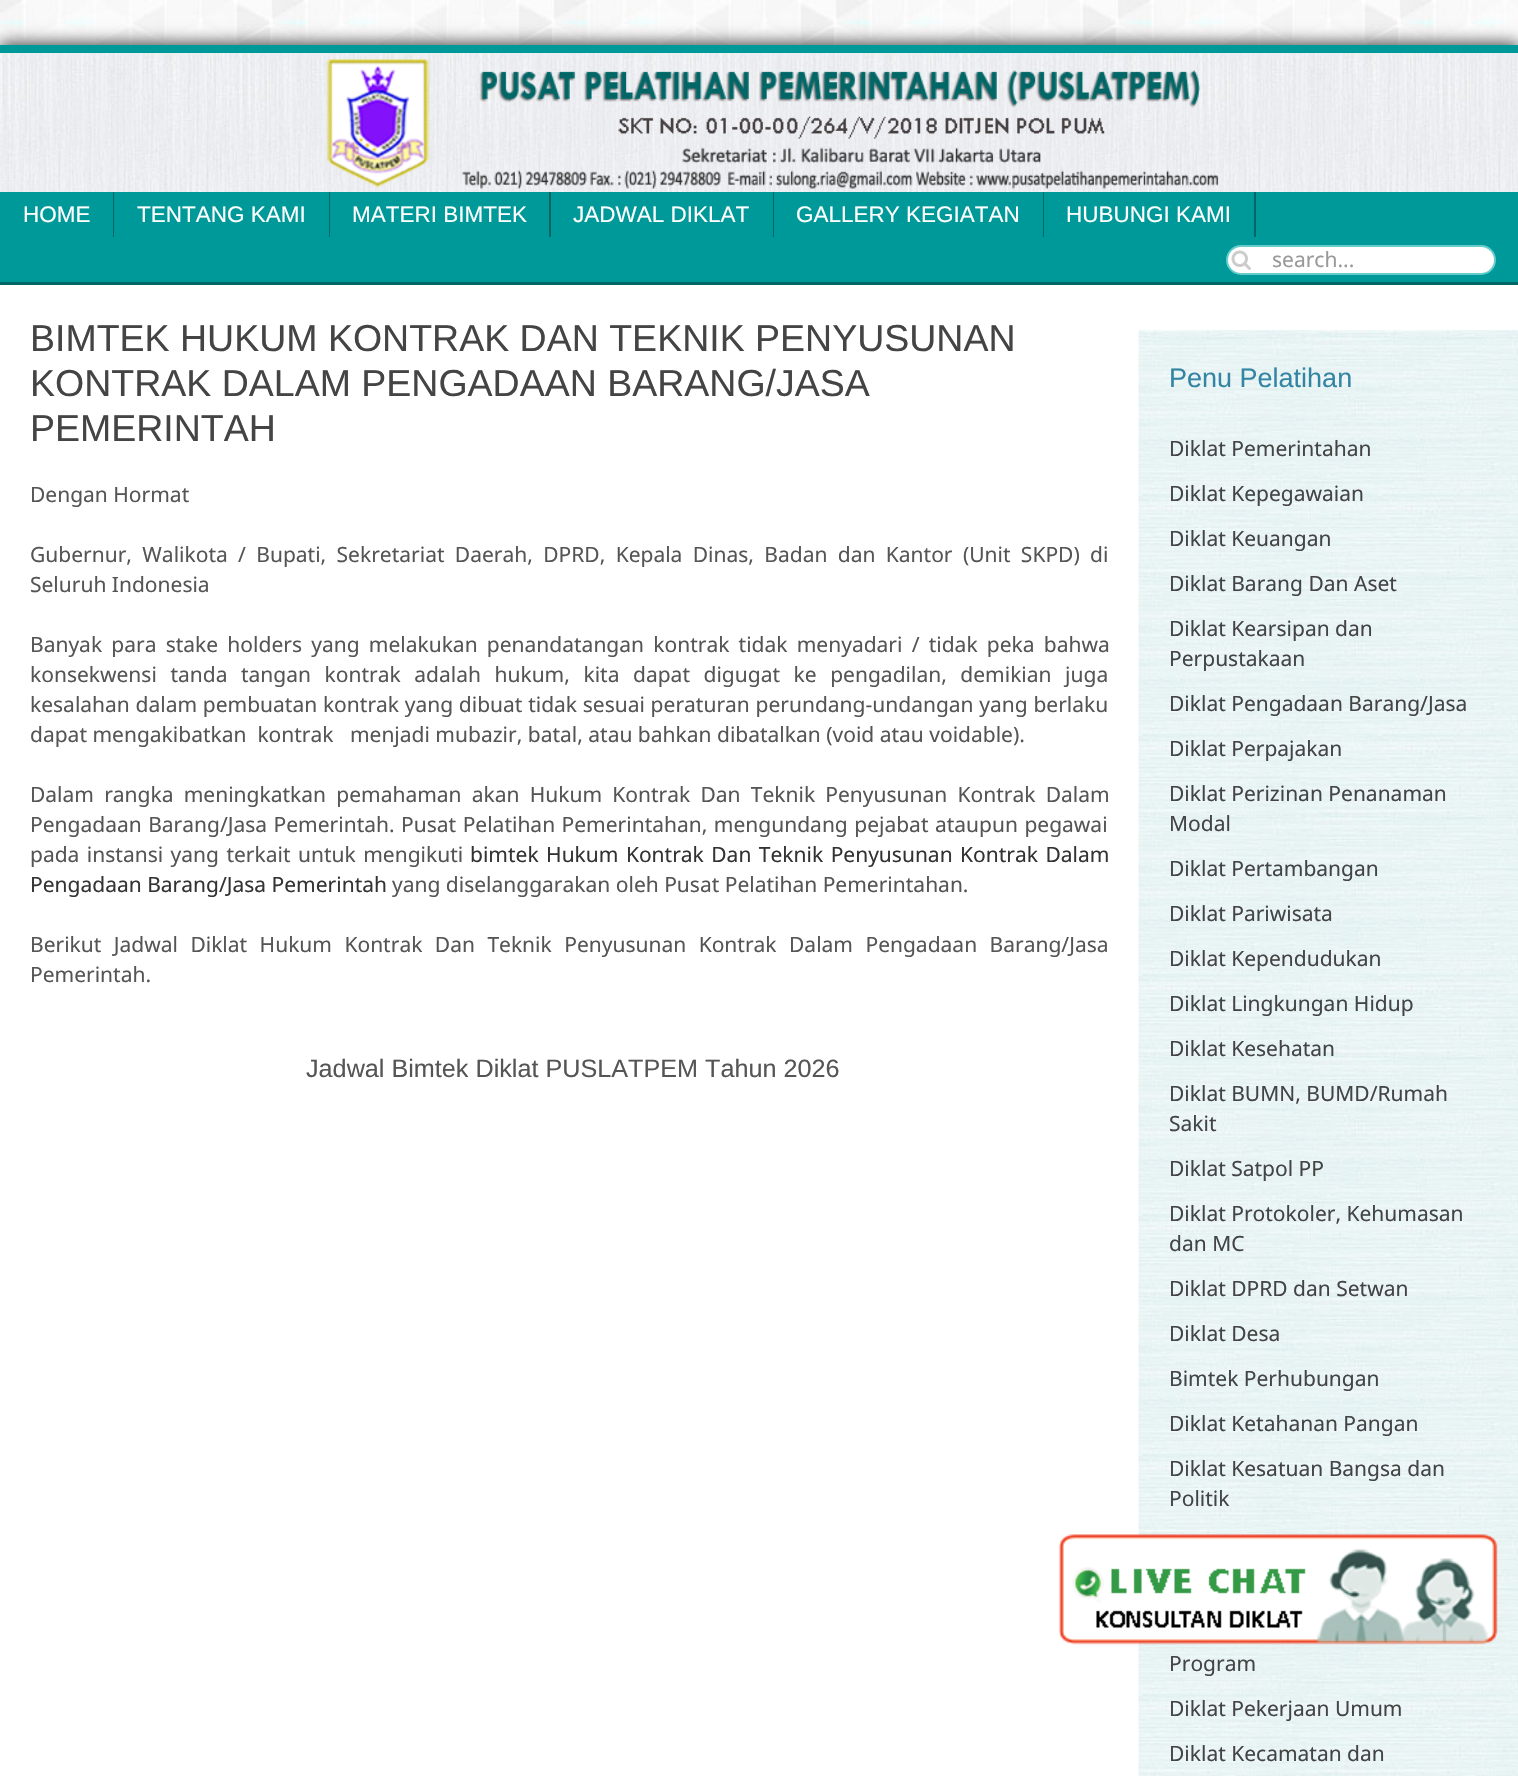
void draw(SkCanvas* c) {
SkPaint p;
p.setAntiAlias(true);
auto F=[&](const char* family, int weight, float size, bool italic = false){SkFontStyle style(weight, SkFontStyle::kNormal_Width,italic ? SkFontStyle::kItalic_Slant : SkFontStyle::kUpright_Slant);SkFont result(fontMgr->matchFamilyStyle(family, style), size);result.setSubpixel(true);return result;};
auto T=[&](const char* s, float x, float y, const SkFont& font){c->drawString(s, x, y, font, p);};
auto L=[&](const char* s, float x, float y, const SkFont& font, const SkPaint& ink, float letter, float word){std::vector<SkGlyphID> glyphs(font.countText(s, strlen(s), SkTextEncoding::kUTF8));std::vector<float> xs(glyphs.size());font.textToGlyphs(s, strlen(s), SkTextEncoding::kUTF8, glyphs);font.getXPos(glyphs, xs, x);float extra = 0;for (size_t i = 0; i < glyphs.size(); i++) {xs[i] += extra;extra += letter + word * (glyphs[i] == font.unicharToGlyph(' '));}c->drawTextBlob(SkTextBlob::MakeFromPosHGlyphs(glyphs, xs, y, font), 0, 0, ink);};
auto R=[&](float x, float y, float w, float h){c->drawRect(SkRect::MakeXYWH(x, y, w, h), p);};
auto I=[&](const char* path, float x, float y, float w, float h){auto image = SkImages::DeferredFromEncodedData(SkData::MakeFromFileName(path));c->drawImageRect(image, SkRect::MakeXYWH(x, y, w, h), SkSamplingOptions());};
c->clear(0xffffffff);
I("1.png",0,0,1518,45);
p.setColor(0xff555555);
p.setMaskFilter(SkMaskFilter::MakeBlur(kNormal_SkBlurStyle, 7.5));
c->drawRect(SkRect::MakeXYWH(0,42,1518,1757),p);
p.setMaskFilter(nullptr);
I("2.png",0,53,1518,139);
p.setColor(0xff009999);
R(0,45,1518,8);
I("3.png",326,59,893,130);
R(0,192,1518,90);
p.setColor(0xff006666);
R(0,282,1518,3);
R(113,192,1,45);
auto f1 = F("Liberation Sans",400,22.5);
p.setColor(0xffffffff);
T("HOME",23,222,f1);
p.setColor(0xff006666);
R(329,192,1,45);
p.setColor(0xffffffff);
T("TENTANG KAMI",137,222,f1);
p.setColor(0xff006666);
R(549,192,2,45);
p.setColor(0xffffffff);
T("MATERI BIMTEK",352,222,f1);
p.setColor(0xff006666);
R(773,192,1,45);
p.setColor(0xffffffff);
T("JADWAL DIKLAT",573,222,f1);
p.setColor(0xff006666);
R(1043,192,1,45);
p.setColor(0xffffffff);
T("GALLERY KEGIATAN",796,222,f1);
p.setColor(0xff006666);
R(1254,192,2,45);
p.setColor(0xffffffff);
T("HUBUNGI KAMI",1066,222,f1);
c->drawRoundRect(SkRect::MakeXYWH(1227,246,268,28),14,14,p);
p.setStroke(true);
p.setStrokeWidth(2);
p.setColor(0xff66cccc);
c->drawRoundRect(SkRect::MakeXYWH(1227,246,268,28),14,14,p);
I("4.png",1231,250,20,20);
auto f2 = F("Noto Sans",400,21);
p.setStroke(false);
p.setColor(0xff999999);
T("search...",1272,267,f2);
p.setColor(0xffffffff);
R(0,285,1518,1491);
auto f3 = F("Liberation Sans",400,37.5);
p.setColor(0xff444444);
T("BIMTEK HUKUM KONTRAK DAN TEKNIK PENYUSUNAN",30,351,f3);
T("KONTRAK DALAM PENGADAAN BARANG/JASA",30,396,f3);
T("PEMERINTAH",30,441,f3);
p.setColor(0xff555555);
T("Dengan Hormat",30,502,f2);
L("Gubernur, Walikota / Bupati, Sekretariat Daerah, DPRD, Kepala Dinas, Badan dan Kantor (Unit SKPD) di",30,562,f2,p,0,4.9);
T("Seluruh Indonesia",30,592,f2);
L("Banyak para stake holders yang melakukan penandatangan kontrak tidak menyadari / tidak peka bahwa",30,652,f2,p,0,3.75);
L("konsekwensi tanda tangan kontrak adalah hukum, kita dapat digugat ke pengadilan, demikian juga",30,682,f2,p,0,8.1);
L("kesalahan dalam pembuatan kontrak yang dibuat tidak sesuai peraturan perundang-undangan yang berlaku",30,712,f2,p,0,.25);
T("dapat mengakibatkan  kontrak   menjadi mubazir, batal, atau bahkan dibatalkan (void atau voidable).",30,742,f2);
L("Dalam rangka meningkatkan pemahaman akan Hukum Kontrak Dan Teknik Penyusunan Kontrak Dalam",30,802,f2,p,0,4.75);
L("Pengadaan Barang/Jasa Pemerintah. Pusat Pelatihan Pemerintahan, mengundang pejabat ataupun pegawai",30,832,f2,p,0,1);
L("pada instansi yang terkait untuk mengikuti",30,862,f2,p,0,2);
p.setColor(0xff333333);
L("bimtek Hukum Kontrak Dan Teknik Penyusunan Kontrak Dalam",470,862,f2,p,0,2);
T("Pengadaan Barang/Jasa Pemerintah",30,892,f2);
p.setColor(0xff555555);
T("yang diselanggarakan oleh Pusat Pelatihan Pemerintahan.",392,892,f2);
L("Berikut Jadwal Diklat Hukum Kontrak Dan Teknik Penyusunan Kontrak Dalam Pengadaan Barang/Jasa",30,952,f2,p,0,7);
T("Pemerintah.",30,982,f2);
auto f4 = F("Liberation Sans",400,25.2);
T("Jadwal Bimtek Diklat PUSLATPEM Tahun 2026",306,1077,f4);
I("5.png",1138,330,380,1446);
auto f5 = F("Liberation Sans",400,27);
p.setColor(0xff3484a4);
T("Penu Pelatihan",1169,387,f5);
p.setColor(0xff444444);
T("Diklat Pemerintahan",1169,456,f2);
T("Diklat Kepegawaian",1169,501,f2);
T("Diklat Keuangan",1169,546,f2);
T("Diklat Barang Dan Aset",1169,591,f2);
T("Diklat Kearsipan dan",1169,636,f2);
T("Perpustakaan",1169,666,f2);
T("Diklat Pengadaan Barang/Jasa",1169,711,f2);
T("Diklat Perpajakan",1169,756,f2);
T("Diklat Perizinan Penanaman",1169,801,f2);
T("Modal",1169,831,f2);
T("Diklat Pertambangan",1169,876,f2);
T("Diklat Pariwisata",1169,921,f2);
T("Diklat Kependudukan",1169,966,f2);
T("Diklat Lingkungan Hidup",1169,1011,f2);
T("Diklat Kesehatan",1169,1056,f2);
T("Diklat BUMN, BUMD/Rumah",1169,1101,f2);
T("Sakit",1169,1131,f2);
T("Diklat Satpol PP",1169,1176,f2);
T("Diklat Protokoler, Kehumasan",1169,1221,f2);
T("dan MC",1169,1251,f2);
T("Diklat DPRD dan Setwan",1169,1296,f2);
T("Diklat Desa",1169,1341,f2);
T("Bimtek Perhubungan",1169,1386,f2);
T("Diklat Ketahanan Pangan",1169,1431,f2);
T("Diklat Kesatuan Bangsa dan",1169,1476,f2);
T("Politik",1169,1506,f2);
T("Program",1169,1671,f2);
T("Diklat Pekerjaan Umum",1169,1716,f2);
T("Diklat Kecamatan dan",1169,1761,f2);
I("6.png",1058,1534,440,111);
}
